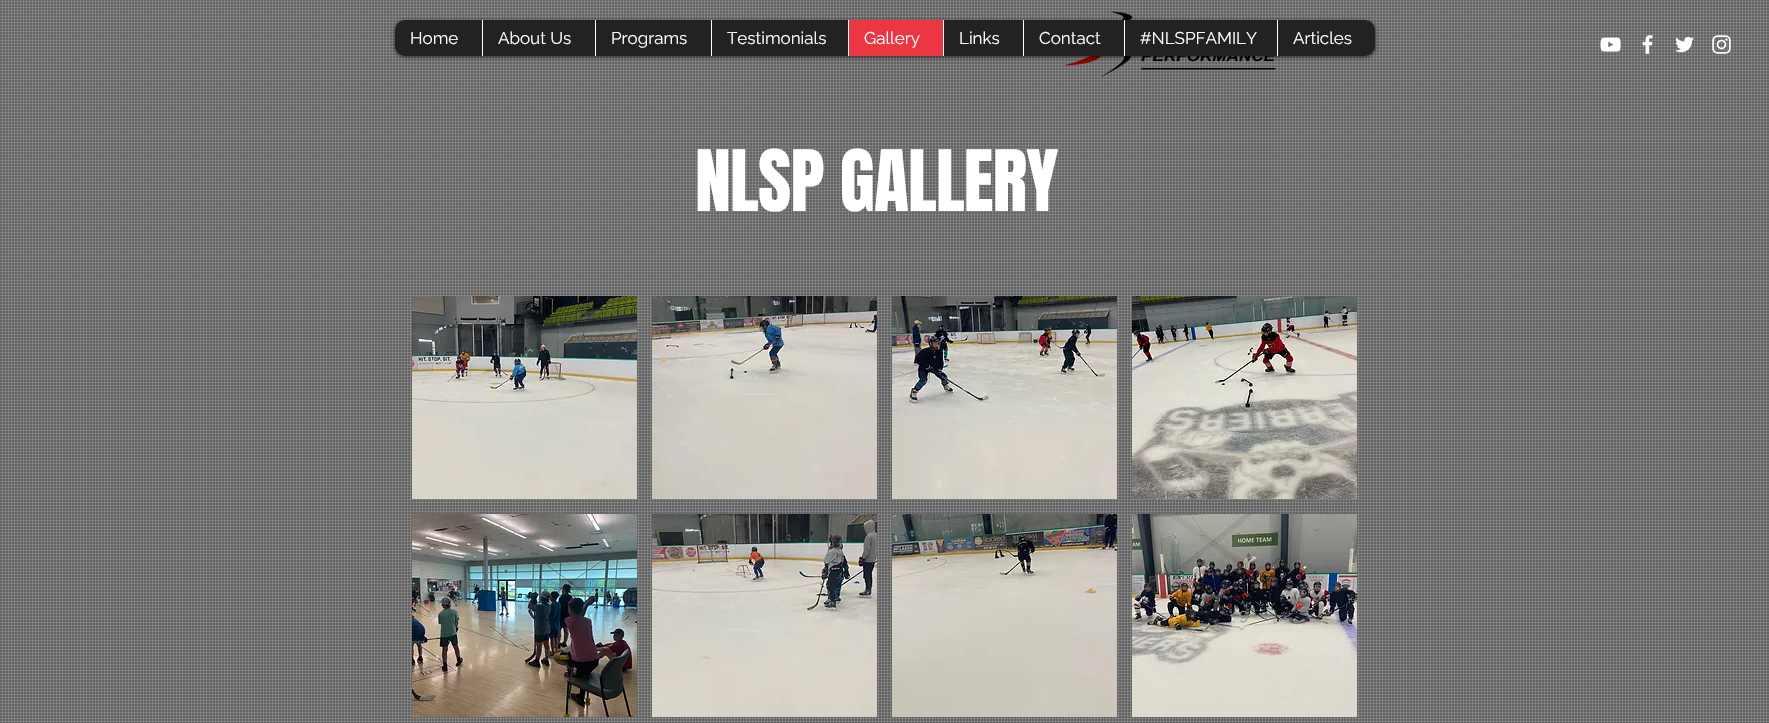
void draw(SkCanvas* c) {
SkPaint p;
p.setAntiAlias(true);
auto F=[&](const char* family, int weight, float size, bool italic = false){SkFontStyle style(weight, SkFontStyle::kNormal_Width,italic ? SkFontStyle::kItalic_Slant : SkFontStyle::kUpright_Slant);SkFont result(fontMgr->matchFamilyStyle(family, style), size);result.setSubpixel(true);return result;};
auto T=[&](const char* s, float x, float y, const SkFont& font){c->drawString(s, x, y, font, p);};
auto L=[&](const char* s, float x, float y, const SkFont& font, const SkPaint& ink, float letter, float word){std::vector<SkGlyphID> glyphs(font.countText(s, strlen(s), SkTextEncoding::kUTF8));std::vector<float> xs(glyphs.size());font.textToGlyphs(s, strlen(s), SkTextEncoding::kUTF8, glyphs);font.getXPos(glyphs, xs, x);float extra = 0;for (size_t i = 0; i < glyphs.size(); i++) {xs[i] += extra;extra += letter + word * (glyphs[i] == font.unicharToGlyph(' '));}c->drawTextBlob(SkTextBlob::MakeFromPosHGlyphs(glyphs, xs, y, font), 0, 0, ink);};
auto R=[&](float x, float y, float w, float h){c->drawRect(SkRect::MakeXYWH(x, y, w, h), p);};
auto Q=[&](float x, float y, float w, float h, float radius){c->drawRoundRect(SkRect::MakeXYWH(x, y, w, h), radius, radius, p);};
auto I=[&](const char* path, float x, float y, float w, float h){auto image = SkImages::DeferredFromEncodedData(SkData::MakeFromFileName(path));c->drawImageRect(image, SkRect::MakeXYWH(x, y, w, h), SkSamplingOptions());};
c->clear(0xff919191);
I("1.png",0,0,1769,723);
I("6.png",1065,11,211,66);
p.setColor(0x99000000);
p.setMaskFilter(SkMaskFilter::MakeBlur(kNormal_SkBlurStyle, 2));
c->drawRoundRect(SkRect::MakeXYWH(395,21,980,36),10,10,p);
p.setMaskFilter(nullptr);
p.setColor(0xff222222);
Q(395,20,980,36,10);
auto f1 = F("Raleway",400,17);
p.setColor(0xffffffff);
T("Home",410,44,f1);
R(482,20,1,36);
T("About Us",498,44,f1);
R(595,20,1,36);
T("Programs",611,44,f1);
R(711,20,1,36);
T("Testimonials",727,44,f1);
p.setColor(0xffec3642);
R(849,20,94,36);
p.setColor(0xffffffff);
R(848,20,1,36);
T("Gallery",864,44,f1);
R(943,20,1,36);
T("Links",959,44,f1);
R(1023,20,1,36);
T("Contact",1039,44,f1);
R(1124,20,1,36);
T("#NLSPFAMILY",1140,44,f1);
R(1277,20,1,36);
T("Articles",1293,44,f1);
I("2.png",1600,37,21,15);
I("3.png",1642,35,11,19);
I("4.png",1675,36,19,17);
I("5.png",1712,35,19,19);
auto f2 = F("Anton",400,72);
L("NLSP GALLERY",695,211,f2,p,-.75,0);
I("7.png",412,296,225,203);
I("8.png",652,296,225,203);
I("9.png",892,296,225,203);
I("10.png",1132,296,225,203);
I("11.png",412,514,225,203);
I("12.png",652,514,225,203);
I("13.png",892,514,225,203);
I("14.png",1132,514,225,203);
auto f3 = F("Raleway",400,16);
p.setColor(0xff8f8d89);
T("9",1239,620,f3);
}
